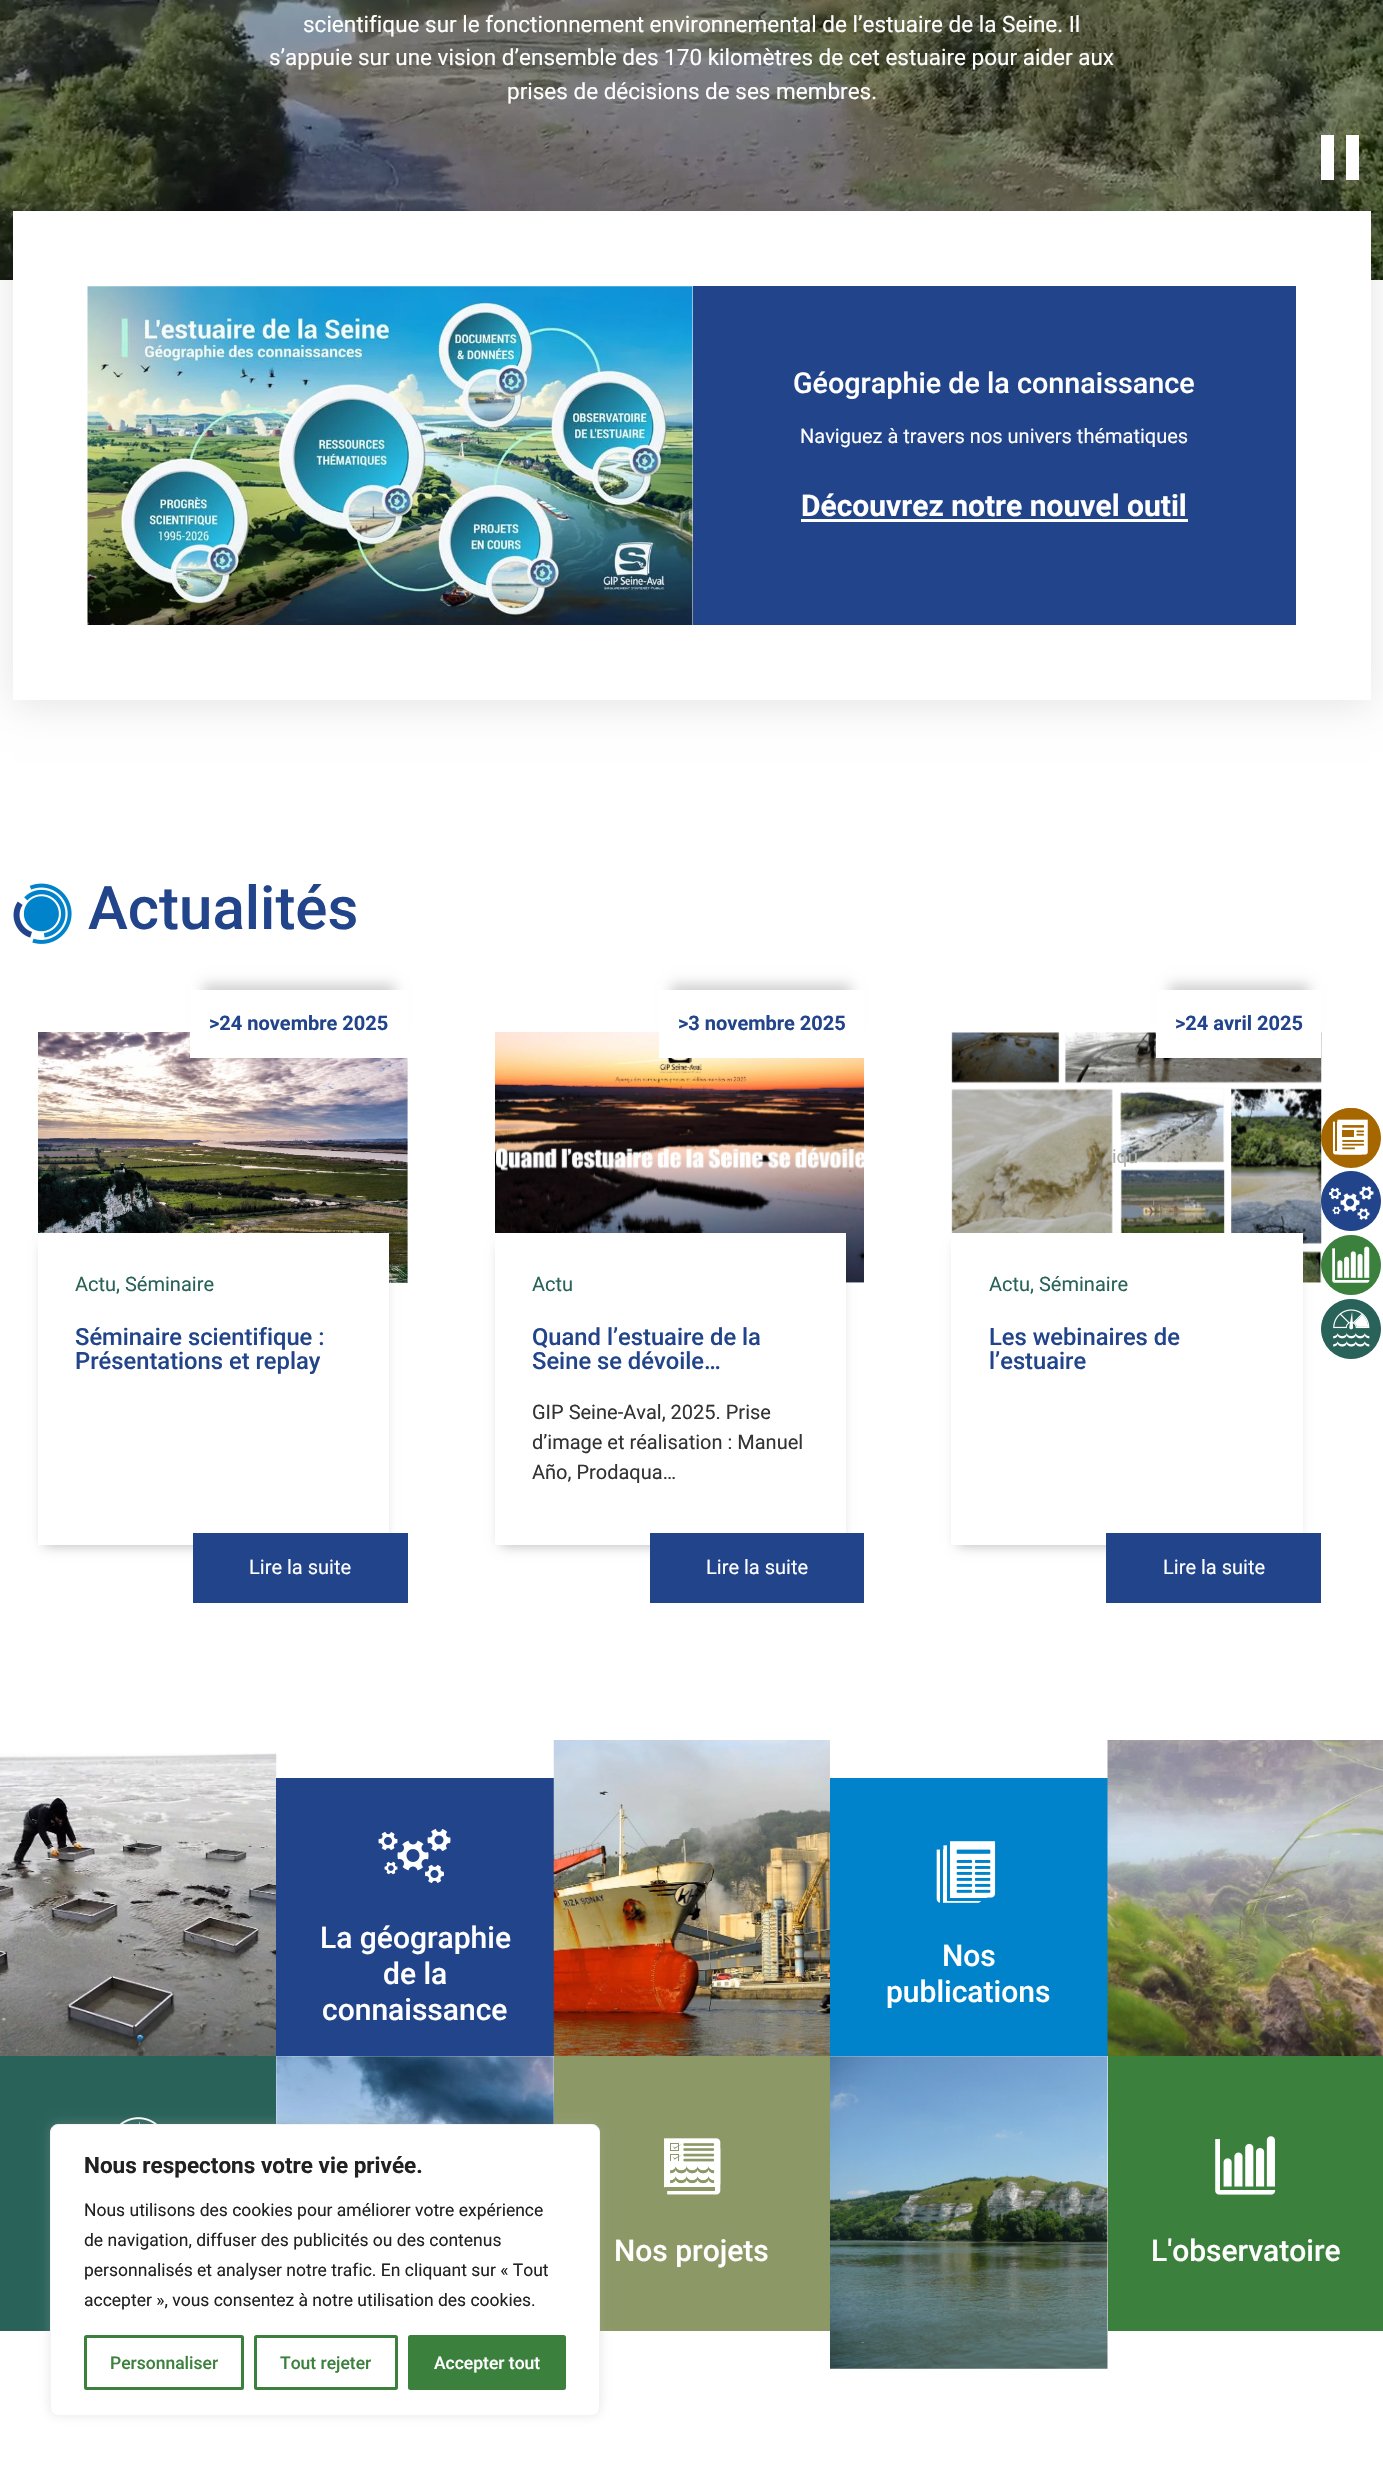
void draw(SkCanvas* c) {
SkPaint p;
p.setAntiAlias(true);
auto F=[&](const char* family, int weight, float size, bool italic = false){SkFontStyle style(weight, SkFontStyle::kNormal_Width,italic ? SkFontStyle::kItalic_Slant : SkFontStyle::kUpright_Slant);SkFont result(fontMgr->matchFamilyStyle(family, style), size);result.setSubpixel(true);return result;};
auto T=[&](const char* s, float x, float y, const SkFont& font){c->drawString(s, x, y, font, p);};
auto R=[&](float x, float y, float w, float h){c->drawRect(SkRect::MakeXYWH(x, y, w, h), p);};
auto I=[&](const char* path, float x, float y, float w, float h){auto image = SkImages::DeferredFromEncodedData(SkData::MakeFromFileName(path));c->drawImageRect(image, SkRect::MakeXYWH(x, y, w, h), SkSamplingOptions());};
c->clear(0xffffffff);
I("1.png",0,0,1383,280);
auto f1 = F("Roboto",400,22.5);
p.setColor(0xffffffff);
T("scientifique sur le fonctionnement environnemental de l’estuaire de la Seine. Il",303,32,f1);
T("s’appuie sur une vision d’ensemble des 170 kilomètres de cet estuaire pour aider aux",269,65,f1);
T("prises de décisions de ses membres.",507,99,f1);
R(1321,135,13,45);
R(1346,135,13,45);
p.setColor(0x1a000000);
p.setMaskFilter(SkMaskFilter::MakeBlur(kNormal_SkBlurStyle, 19));
c->drawRect(SkRect::MakeXYWH(13,218,1358,488),p);
p.setMaskFilter(nullptr);
p.setColor(0xffffffff);
R(13,211,1358,489);
I("2.png",87,286,606,339);
p.setColor(0xff21448b);
R(693,286,603,339);
auto f2 = F("Roboto",500,28.75);
p.setColor(0xffffffff);
T("Géographie de la connaissance",793,393,f2);
auto f3 = F("Roboto",400,20);
T("Naviguez à travers nos univers thématiques",800,443,f3);
auto f4 = F("Roboto",700,30);
T("Découvrez notre nouvel outil",801,516,f4);
R(801,519,387,3);
I("3.png",13,883,59,61);
auto f5 = F("Roboto",500,60);
p.setColor(0xff21448b);
T("Actualités",88,929,f5);
I("4.png",38,1032,370,251);
p.setColor(0x2e000000);
p.setMaskFilter(SkMaskFilter::MakeBlur(kNormal_SkBlurStyle, 6));
c->drawRect(SkRect::MakeXYWH(203,984,192,42),p);
p.setMaskFilter(nullptr);
p.setColor(0xffffffff);
R(190,990,218,68);
auto f6 = F("Roboto",700,20);
p.setColor(0xff21448b);
T(">24 novembre 2025",209,1030,f6);
p.setColor(0x4d000000);
p.setMaskFilter(SkMaskFilter::MakeBlur(kNormal_SkBlurStyle, 6));
c->drawRect(SkRect::MakeXYWH(44,1245,339,300),p);
p.setMaskFilter(nullptr);
p.setColor(0xffffffff);
R(38,1233,351,312);
p.setColor(0xff286259);
T("Actu, Séminaire",75,1291,f3);
auto f7 = F("Roboto",500,23.75);
p.setColor(0xff21448b);
T("Séminaire scientifique :",75,1345,f7);
T("Présentations et replay",75,1369,f7);
R(193,1533,215,70);
p.setColor(0xffffffff);
T("Lire la suite",249,1574,f3);
I("5.png",495,1032,369,251);
p.setColor(0x2e000000);
p.setMaskFilter(SkMaskFilter::MakeBlur(kNormal_SkBlurStyle, 6));
c->drawRect(SkRect::MakeXYWH(671,984,180,42),p);
p.setMaskFilter(nullptr);
p.setColor(0xffffffff);
R(659,990,205,68);
p.setColor(0xff21448b);
T(">3 novembre 2025",678,1030,f6);
p.setColor(0x4d000000);
p.setMaskFilter(SkMaskFilter::MakeBlur(kNormal_SkBlurStyle, 6));
c->drawRect(SkRect::MakeXYWH(501,1245,339,300),p);
p.setMaskFilter(nullptr);
p.setColor(0xffffffff);
R(495,1233,351,312);
p.setColor(0xff286259);
T("Actu",532,1291,f3);
p.setColor(0xff21448b);
T("Quand l’estuaire de la",532,1345,f7);
T("Seine se dévoile…",532,1369,f7);
p.setColor(0xff333333);
T("GIP Seine-Aval, 2025. Prise",532,1419,f3);
T("d’image et réalisation : Manuel",532,1449,f3);
T("Año, Prodaqua…",532,1479,f3);
p.setColor(0xff21448b);
R(650,1533,214,70);
p.setColor(0xffffffff);
T("Lire la suite",706,1574,f3);
I("6.png",951,1032,371,251);
p.setColor(0x2e000000);
p.setMaskFilter(SkMaskFilter::MakeBlur(kNormal_SkBlurStyle, 6));
c->drawRect(SkRect::MakeXYWH(1169,984,140,42),p);
p.setMaskFilter(nullptr);
p.setColor(0xffffffff);
R(1156,990,165,68);
p.setColor(0xff21448b);
T(">24 avril 2025",1175,1030,f6);
auto f8 = F("Roboto",400,19);
p.setColor(0xffafafa7);
T("iqu",1112,1163,f8);
p.setColor(0x4d000000);
p.setMaskFilter(SkMaskFilter::MakeBlur(kNormal_SkBlurStyle, 6));
c->drawRect(SkRect::MakeXYWH(958,1245,338,300),p);
p.setMaskFilter(nullptr);
p.setColor(0xffffffff);
R(951,1233,352,312);
p.setColor(0xff286259);
T("Actu, Séminaire",989,1291,f3);
p.setColor(0xff21448b);
T("Les webinaires de",989,1345,f7);
T("l’estuaire",989,1369,f7);
R(1106,1533,215,70);
p.setColor(0xffffffff);
T("Lire la suite",1163,1574,f3);
I("7.png",0,1753,277,304);
p.setColor(0xff21448b);
R(276,1778,278,278);
I("8.png",378,1829,73,55);
auto f9 = F("Roboto",500,30);
p.setColor(0xffffffff);
T("La géographie",320,1948,f9);
T("de la",383,1984,f9);
T("connaissance",322,2020,f9);
I("9.png",553,1740,277,317);
p.setColor(0xff0083cb);
R(830,1778,278,278);
I("10.png",936,1841,60,62);
p.setColor(0xffffffff);
T("Nos",942,1966,f9);
T("publications",886,2002,f9);
I("11.png",1107,1740,276,317);
p.setColor(0xff286259);
R(0,2056,276,275);
I("12.png",109,2117,59,7);
I("13.png",276,2056,278,68);
p.setColor(0xff8c9866);
R(554,2056,276,275);
I("14.png",664,2138,57,57);
p.setColor(0xffffffff);
T("Nos projets",614,2261,f9);
I("15.png",830,2056,278,313);
p.setColor(0xff3b813d);
R(1108,2056,275,275);
I("16.png",1215,2136,61,59);
p.setColor(0xffffffff);
T("L'observatoire",1151,2261,f9);
p.setColor(0xffa76700);
c->drawCircle(1351,1138,30,p);
I("17.png",1321,1108,60,47);
p.setColor(0xff21448b);
c->drawCircle(1351,1201,30,p);
I("18.png",1321,1171,60,60);
p.setColor(0xff3b813d);
c->drawCircle(1351,1265,30,p);
I("19.png",1321,1235,60,60);
p.setColor(0xff286259);
c->drawCircle(1351,1329,30,p);
I("20.png",1321,1299,60,60);
p.setColor(0x4dacabab);
p.setMaskFilter(SkMaskFilter::MakeBlur(kNormal_SkBlurStyle, 6));
c->drawRoundRect(SkRect::MakeXYWH(50,2123,550,292),8,8,p);
p.setMaskFilter(nullptr);
p.setColor(0xffffffff);
c->drawRoundRect(SkRect::MakeXYWH(50.5,2124.5,549,291),7.5,7.5,p);
p.setStroke(true);
p.setStrokeWidth(1);
p.setColor(0xfff4f4f4);
c->drawRoundRect(SkRect::MakeXYWH(50.5,2124.5,549,291),7.5,7.5,p);
auto f10 = F("Roboto",700,22.5);
p.setStroke(false);
p.setColor(0xff212121);
T("Nous respectons votre vie privée.",84,2173,f10);
auto f11 = F("Roboto",400,17.5);
T("Nous utilisons des cookies pour améliorer votre expérience",84,2216,f11);
T("de navigation, diffuser des publicités ou des contenus",84,2246,f11);
T("personnalisés et analyser notre trafic. En cliquant sur « Tout",84,2276,f11);
T("accepter », vous consentez à notre utilisation des cookies.",84,2306,f11);
p.setStroke(true);
p.setStrokeWidth(3);
p.setColor(0xff3b813d);
c->drawRoundRect(SkRect::MakeXYWH(85.5,2336.5,157,52),1,1,p);
auto f12 = F("Roboto",500,17.5);
p.setStroke(false);
T("Personnaliser",110,2369,f12);
p.setStroke(true);
c->drawRoundRect(SkRect::MakeXYWH(255.5,2336.5,141,52),1,1,p);
p.setStroke(false);
T("Tout rejeter",280,2369,f12);
c->drawRoundRect(SkRect::MakeXYWH(409.5,2336.5,155,52),1,1,p);
p.setStroke(true);
c->drawRoundRect(SkRect::MakeXYWH(409.5,2336.5,155,52),1,1,p);
p.setStroke(false);
p.setColor(0xffffffff);
T("Accepter tout",434,2369,f12);
}
